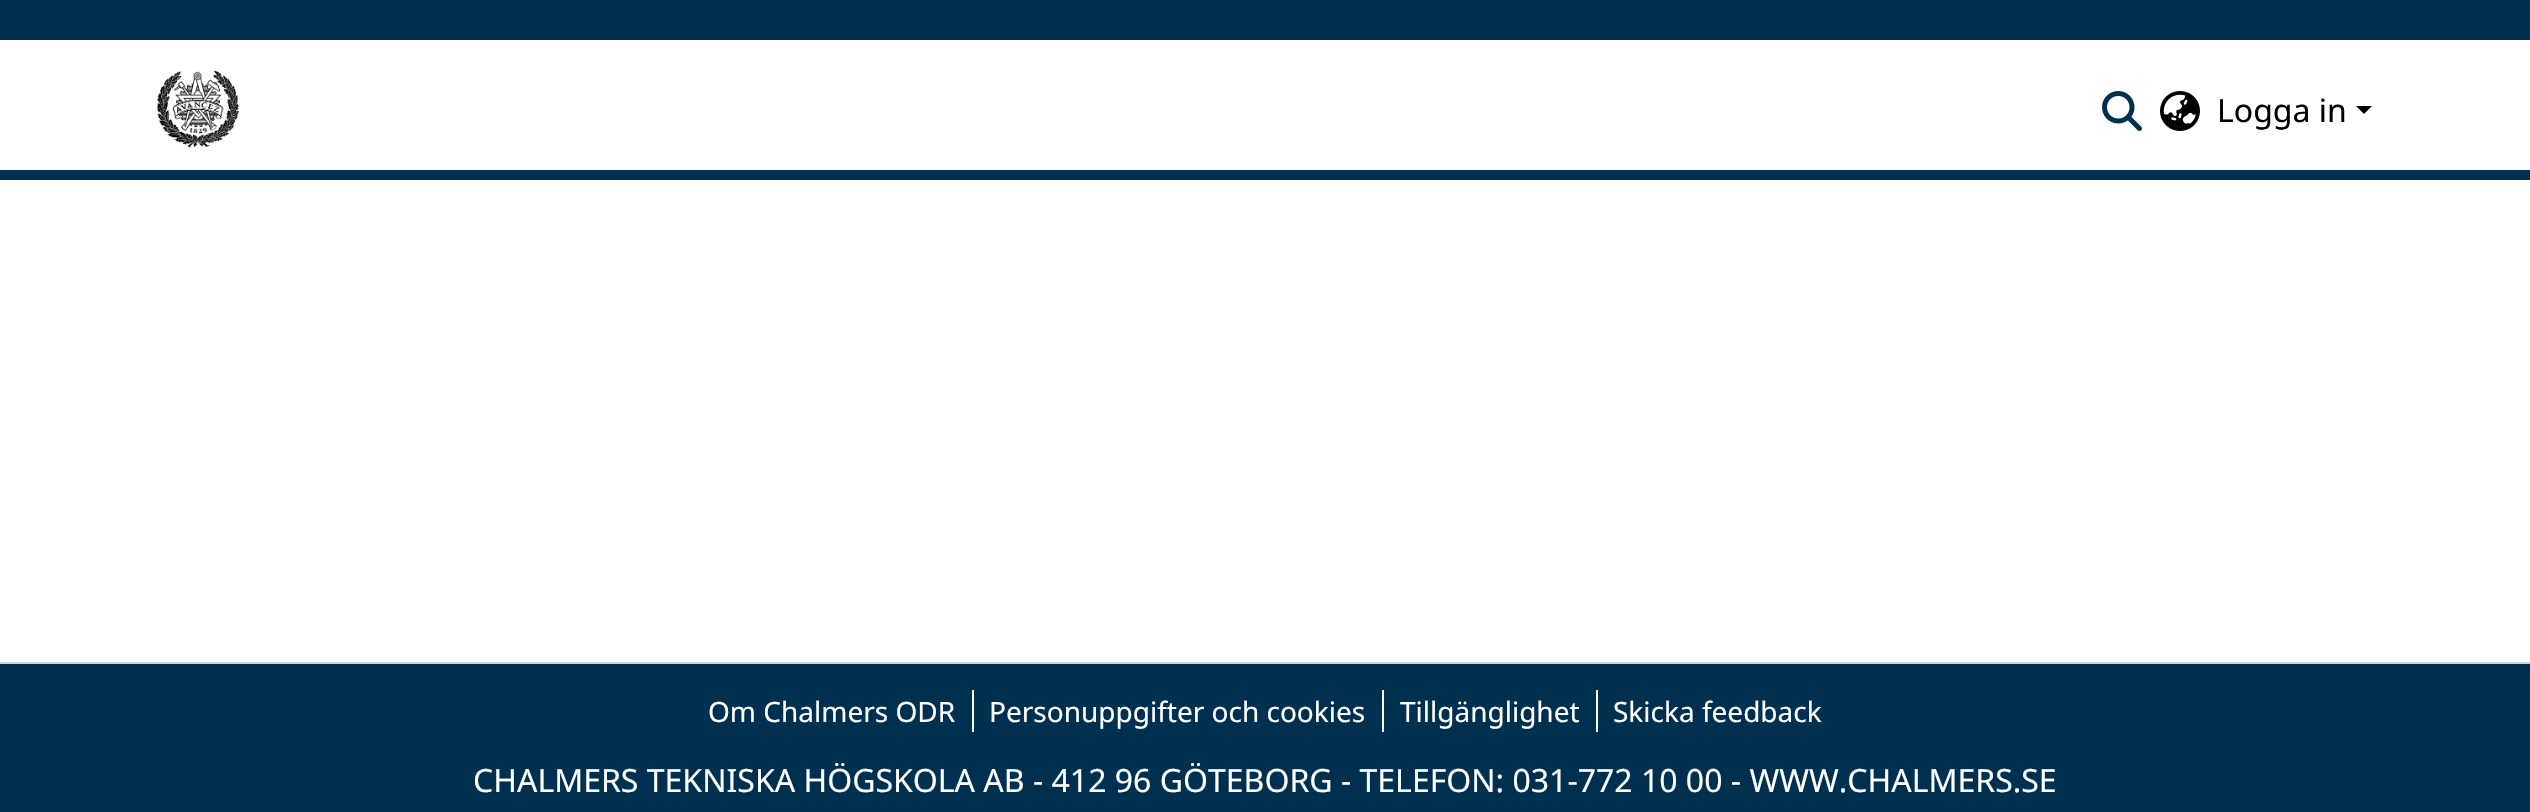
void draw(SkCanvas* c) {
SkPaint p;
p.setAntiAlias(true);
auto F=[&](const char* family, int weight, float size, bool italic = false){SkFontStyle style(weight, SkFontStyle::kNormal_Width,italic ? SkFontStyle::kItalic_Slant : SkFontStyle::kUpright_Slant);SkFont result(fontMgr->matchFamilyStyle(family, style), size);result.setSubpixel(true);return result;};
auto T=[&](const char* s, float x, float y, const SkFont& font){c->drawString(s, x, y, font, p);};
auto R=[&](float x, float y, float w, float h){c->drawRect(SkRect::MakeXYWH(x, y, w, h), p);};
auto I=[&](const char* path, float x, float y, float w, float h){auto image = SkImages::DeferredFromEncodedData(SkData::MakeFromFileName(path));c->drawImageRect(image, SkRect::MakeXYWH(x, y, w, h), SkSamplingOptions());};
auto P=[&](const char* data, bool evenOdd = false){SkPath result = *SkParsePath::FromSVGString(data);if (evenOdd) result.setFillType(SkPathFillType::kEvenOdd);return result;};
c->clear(0xffffffff);
p.setColor(0xff003050);
R(0,0,2530,40);
R(0,170,2530,10);
I("1.png",156,70,84,78);
I("2.png",2102,91,40,40);
I("3.png",2160,91,40,40);
auto f1 = F("Noto Sans",400,32);
p.setColor(0xff000000);
T("Logga in",2217,122,f1);
c->drawPath(P("M2356 106h16l-8 8z"),p);
p.setColor(0xff003050);
R(0,664,2530,148);
p.setColor(0xffced4da);
R(0,662,2530,2);
auto f2 = F("Noto Sans",400,28);
p.setColor(0xffffffff);
T("Om Chalmers ODR",708,722,f2);
R(972,690,2,42);
T("Personuppgifter och cookies",989,722,f2);
R(1382,690,2,42);
T("Tillgänglighet",1400,722,f2);
R(1596,690,2,42);
T("Skicka feedback",1613,722,f2);
T("CHALMERS TEKNISKA HÖGSKOLA AB - 412 96 GÖTEBORG - TELEFON: 031-772 10 00 - WWW.CHALMERS.SE",473,792,f1);
}
